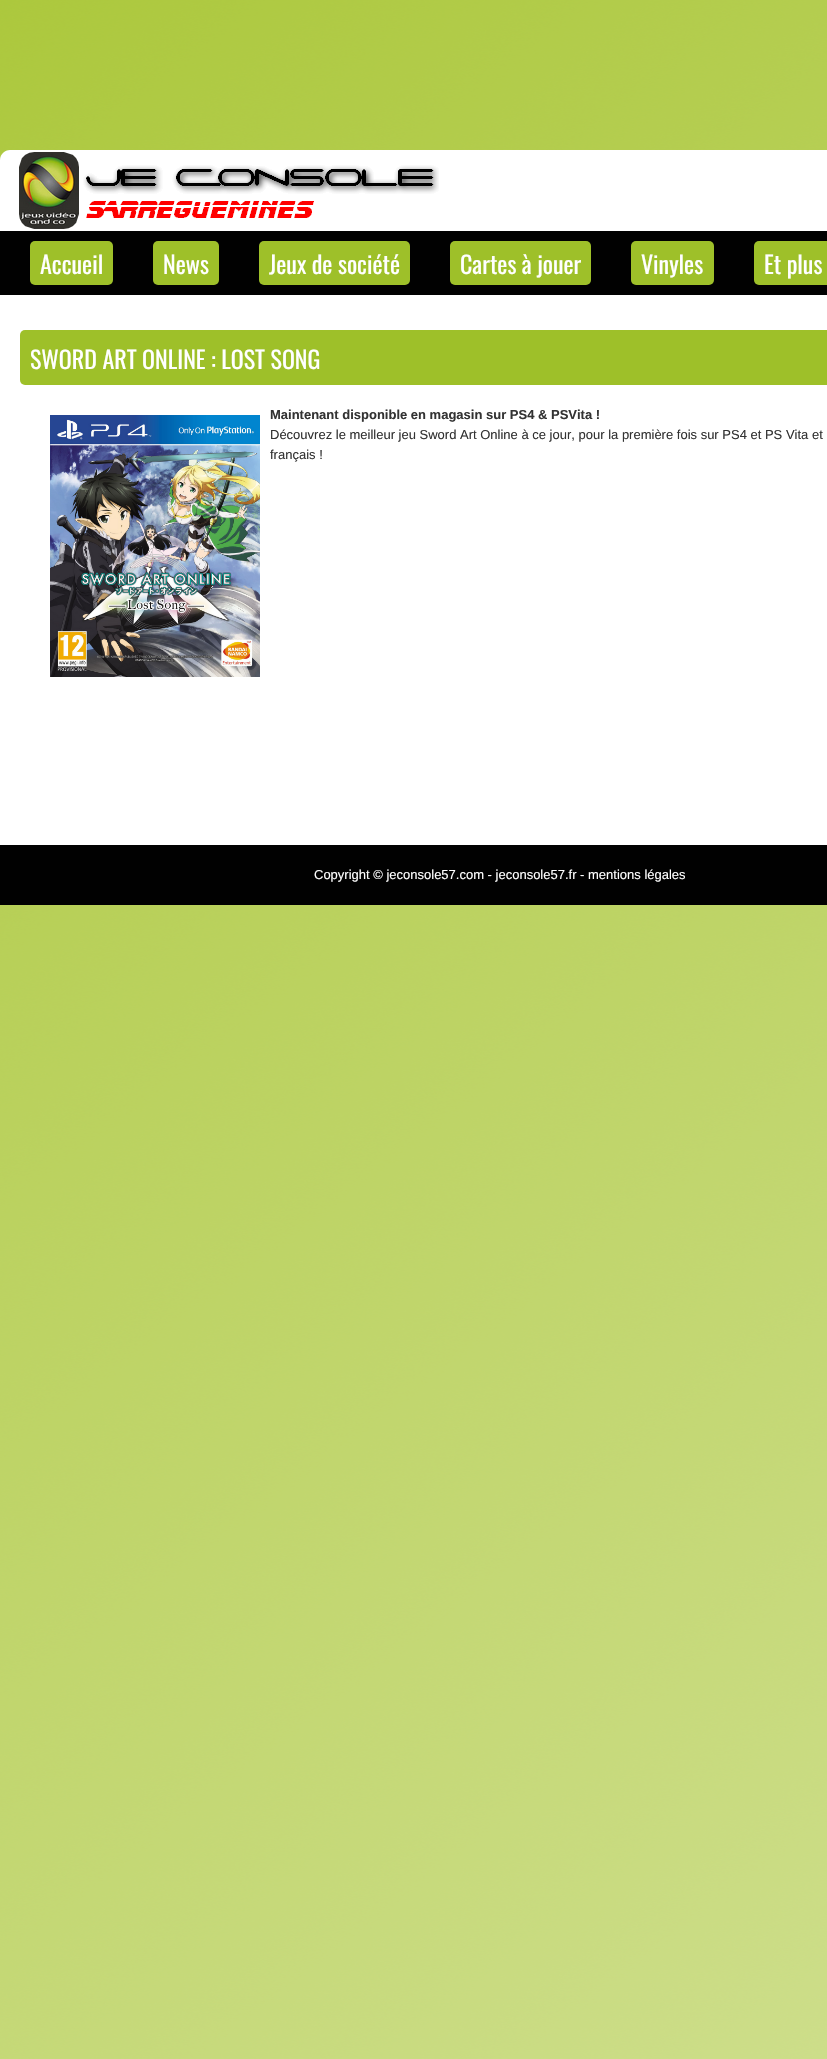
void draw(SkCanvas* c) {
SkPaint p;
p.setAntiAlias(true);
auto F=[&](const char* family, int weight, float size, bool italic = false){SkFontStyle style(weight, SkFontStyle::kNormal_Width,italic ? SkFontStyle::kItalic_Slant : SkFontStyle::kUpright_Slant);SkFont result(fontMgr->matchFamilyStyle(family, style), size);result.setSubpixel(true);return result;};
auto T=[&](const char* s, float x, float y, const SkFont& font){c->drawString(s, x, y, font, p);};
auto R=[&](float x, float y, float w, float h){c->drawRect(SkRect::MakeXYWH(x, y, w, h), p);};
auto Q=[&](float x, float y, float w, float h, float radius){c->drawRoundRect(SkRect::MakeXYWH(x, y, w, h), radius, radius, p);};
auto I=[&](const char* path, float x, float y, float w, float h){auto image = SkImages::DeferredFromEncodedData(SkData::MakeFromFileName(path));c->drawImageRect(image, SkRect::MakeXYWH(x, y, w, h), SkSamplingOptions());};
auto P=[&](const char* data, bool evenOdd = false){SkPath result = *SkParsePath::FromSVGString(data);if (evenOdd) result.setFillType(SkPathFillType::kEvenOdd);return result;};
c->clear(0xffffffff);
I("1.png",0,0,827,2059);
p.setColor(0xffffffff);
c->drawPath(P("M10 150h817c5.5 0 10 4.5 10 10v71h-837v-71c0-5.5 4.5-10 10-10z"),p);
I("2.png",19,152,420,77);
p.setColor(0xff010101);
R(0,231,827,64);
p.setColor(0xff9ec029);
Q(30,241,83,44,5);
auto f1 = F("Oswald",400,24);
p.setColor(0xffffffff);
T("Accueil",40,274,f1);
p.setColor(0xff9ec029);
Q(153,241,66,44,5);
p.setColor(0xffffffff);
T("News",163,274,f1);
p.setColor(0xff9ec029);
Q(259,241,151,44,5);
p.setColor(0xffffffff);
T("Jeux de société",269,274,f1);
p.setColor(0xff9ec029);
Q(450,241,141,44,5);
p.setColor(0xffffffff);
T("Cartes à jouer",460,274,f1);
p.setColor(0xff9ec029);
Q(631,241,83,44,5);
p.setColor(0xffffffff);
T("Vinyles",641,274,f1);
p.setColor(0xff9ec029);
Q(754,241,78,44,5);
p.setColor(0xffffffff);
T("Et plus",764,274,f1);
R(0,295,827,550);
p.setColor(0xff9ec029);
Q(20,330,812,55,5);
p.setColor(0xffffffff);
T("SWORD ART ONLINE : LOST SONG",30,369,f1);
I("3.png",50,415,210,262);
auto f2 = F("Liberation Sans",700,13);
p.setColor(0xff333333);
T("Maintenant disponible en magasin sur PS4 & PSVita !",270,419,f2);
auto f3 = F("Liberation Sans",400,13);
T("Découvrez le meilleur jeu Sword Art Online à ce jour, pour la première fois sur PS4 et PS Vita et",270,439,f3);
T("français !",270,459,f3);
p.setColor(0xff010101);
R(0,845,827,60);
p.setColor(0xffffffff);
T("Copyright © jeconsole57.com - jeconsole57.fr - mentions légales",314,879,f3);
}
